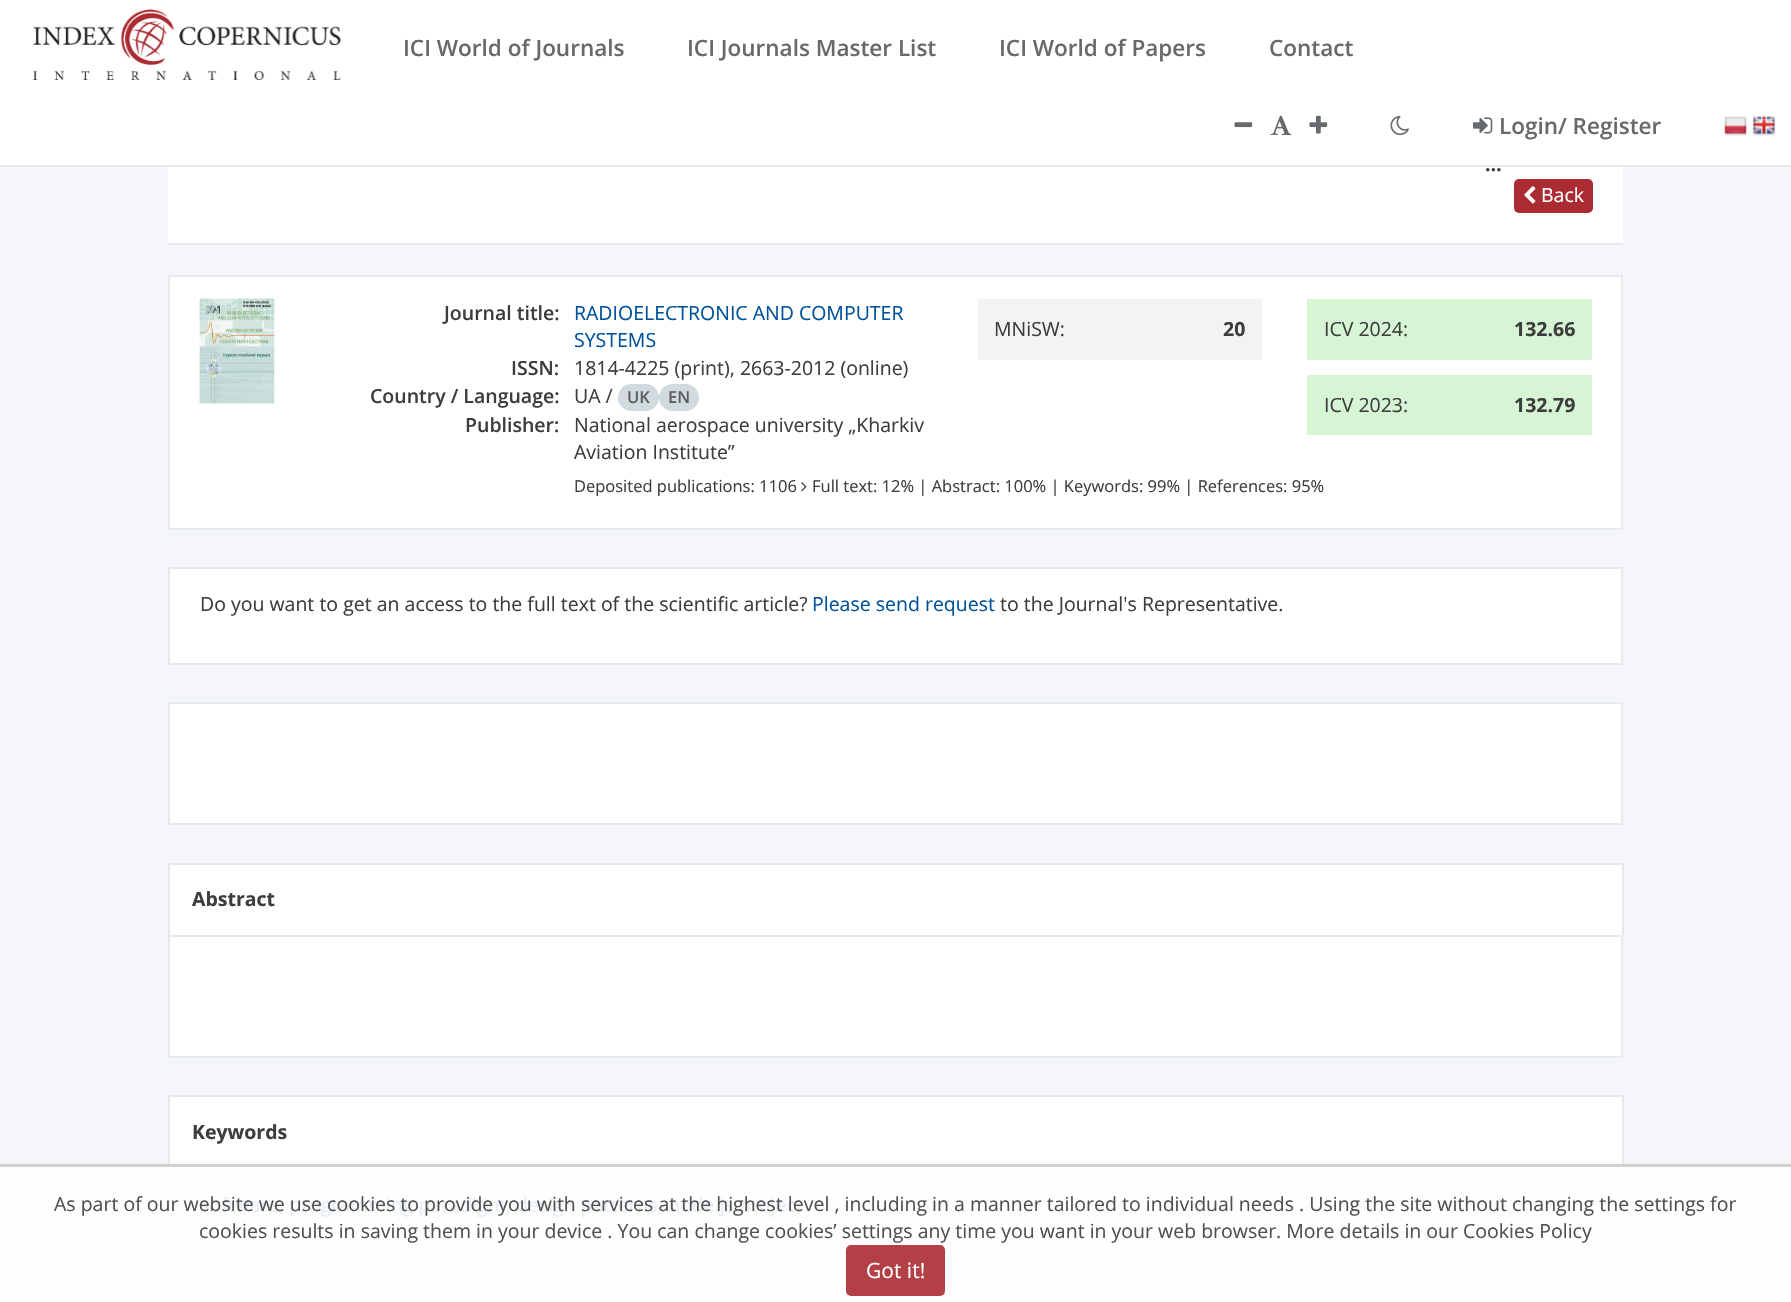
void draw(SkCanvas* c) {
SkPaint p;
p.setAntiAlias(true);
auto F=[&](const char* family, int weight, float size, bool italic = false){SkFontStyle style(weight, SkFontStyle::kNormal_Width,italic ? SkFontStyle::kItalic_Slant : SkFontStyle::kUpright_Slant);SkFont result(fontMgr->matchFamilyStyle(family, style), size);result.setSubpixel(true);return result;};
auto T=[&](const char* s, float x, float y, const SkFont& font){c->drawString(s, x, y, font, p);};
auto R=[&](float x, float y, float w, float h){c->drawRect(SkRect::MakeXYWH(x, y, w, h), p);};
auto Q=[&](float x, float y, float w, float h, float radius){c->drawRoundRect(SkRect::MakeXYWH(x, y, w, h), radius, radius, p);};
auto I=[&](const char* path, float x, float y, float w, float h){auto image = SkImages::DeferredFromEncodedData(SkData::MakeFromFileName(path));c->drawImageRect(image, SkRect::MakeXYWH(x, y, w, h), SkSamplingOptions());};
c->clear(0xfff4f6fa);
p.setColor(0xffffffff);
R(0,0,1791,165);
p.setColor(0xffe7eaec);
R(0,165,1791,2);
I("1.png",33,9,308,72);
auto f1 = F("Open Sans",600,22.5);
p.setColor(0xff676a6c);
T("ICI World of Journals",403,56,f1);
T("ICI Journals Master List",687,56,f1);
T("ICI World of Papers",999,56,f1);
T("Contact",1269,56,f1);
I("2.png",1234,122,19,6);
I("3.png",1270,115,22,21);
I("4.png",1309,115,19,19);
I("5.png",1390,115,19,21);
I("6.png",1473,117,20,17);
T("Login/ Register",1499,134,f1);
I("7.png",1724,116,23,20);
I("8.png",1752,116,24,20);
p.setColor(0xfffefeff);
R(0,1167,1791,135);
p.setColor(0xffffffff);
R(168,167,1455,76);
p.setColor(0xffe7eaec);
R(168,243,1455,2);
auto f2 = F("Open Sans",700,19.5);
p.setColor(0xff3d3d3d);
T("…",1485,171,f2);
p.setColor(0xffaa2b31);
c->drawRoundRect(SkRect::MakeXYWH(1515,180,77,32),4,4,p);
p.setStroke(true);
p.setStrokeWidth(2);
c->drawRoundRect(SkRect::MakeXYWH(1515,180,77,32),4,4,p);
I("9.png",1524,186,12,18);
auto f3 = F("Open Sans",400,19.5);
p.setStroke(false);
p.setColor(0xffffffff);
T("Back",1541,202,f3);
c->drawRect(SkRect::MakeXYWH(169,276,1453,253),p);
p.setStroke(true);
p.setColor(0xffe7eaec);
c->drawRect(SkRect::MakeXYWH(169,276,1453,253),p);
I("10.png",199,298,76,106);
auto f4 = F("Open Sans",600,19.5);
p.setStroke(false);
p.setColor(0xff3d3d3d);
T("Journal title:",444,320,f4);
p.setColor(0xff00539b);
T("RADIOELECTRONIC AND COMPUTER",574,320,f3);
T("SYSTEMS",574,347,f3);
p.setColor(0xff3d3d3d);
T("ISSN:",511,375,f4);
T("1814-4225 (print), 2663-2012 (online)",574,375,f3);
T("Country / Language:",370,403,f4);
T("UA /",574,403,f3);
p.setColor(0xffd1dade);
Q(618,384,41,27,13.5);
auto f5 = F("Open Sans",600,16.5);
p.setColor(0xff5e5e5e);
T("UK",627,403,f5);
p.setColor(0xffd1dade);
Q(659,384,40,27,13.5);
p.setColor(0xff5e5e5e);
T("EN",668,403,f5);
p.setColor(0xff3d3d3d);
T("Publisher:",465,432,f4);
T("National aerospace university „Kharkiv",574,432,f3);
T("Aviation Institute”",574,459,f3);
p.setColor(0xfff3f3f4);
R(978,299,284,61);
p.setColor(0xff3d3d3d);
T("MNiSW:",994,336,f3);
T("20",1223,336,f2);
p.setColor(0xffd5f5d4);
R(1307,299,285,61);
p.setColor(0xff3d3d3d);
T("ICV 2024:",1324,336,f3);
T("132.66",1514,336,f2);
p.setColor(0xffd5f5d4);
R(1307,375,285,60);
p.setColor(0xff3d3d3d);
T("ICV 2023:",1324,412,f3);
T("132.79",1514,412,f2);
auto f6 = F("Open Sans",400,16.5);
T("Deposited publications: 1106",574,492,f6);
I("11.png",801,482,6,10);
T("Full text: 12% | Abstract: 100% | Keywords: 99% | References: 95%",812,492,f6);
p.setColor(0xffffffff);
c->drawRect(SkRect::MakeXYWH(169,568,1453,96),p);
p.setStroke(true);
p.setColor(0xffe7eaec);
c->drawRect(SkRect::MakeXYWH(169,568,1453,96),p);
p.setStroke(false);
p.setColor(0xff3d3d3d);
T("Do you want to get an access to the full text of the scientific article?",200,611,f3);
p.setColor(0xff00539b);
T("Please send request",812,611,f3);
p.setColor(0xff3d3d3d);
T("to the Journal's Representative.",1000,611,f3);
p.setColor(0xffffffff);
c->drawRect(SkRect::MakeXYWH(169,703,1453,121),p);
p.setStroke(true);
p.setColor(0xffe7eaec);
c->drawRect(SkRect::MakeXYWH(169,703,1453,121),p);
p.setStroke(false);
p.setColor(0xffffffff);
R(170,865,1452,70);
p.setColor(0xffe7eaec);
R(168,863,1455,2);
R(1622,863,2,72);
R(168,863,2,72);
p.setColor(0xff3d3d3d);
T("Abstract",192,906,f2);
p.setColor(0xffffffff);
c->drawRect(SkRect::MakeXYWH(169,936,1453,121),p);
p.setStroke(true);
p.setColor(0xffe7eaec);
c->drawRect(SkRect::MakeXYWH(169,936,1453,121),p);
p.setStroke(false);
p.setColor(0xffffffff);
R(170,1097,1452,67);
p.setColor(0xffe7eaec);
R(168,1095,1455,2);
R(1622,1095,2,72);
R(168,1095,2,72);
p.setColor(0xff3d3d3d);
T("Keywords",192,1139,f2);
p.setColor(0xffe6eef5);
T("software",200,1212,f3);
p.setColor(0xffececec);
T(",",279,1212,f3);
p.setColor(0xffe6eef5);
T("programming paradigm",289,1212,f3);
p.setColor(0xffececec);
T(",",506,1212,f3);
p.setColor(0xffe6eef5);
T("design patterns",516,1212,f3);
p.setColor(0xffececec);
T(",",657,1212,f3);
p.setColor(0xffe6eef5);
T("node.js project",668,1212,f3);
p.setColor(0xffd1d1d1);
R(0,1164,1791,3);
p.setColor(0xff505050);
T("As part of our website we use cookies to provide you with services at the highest level , including in a manner tailored to individual needs . Using the site without changing the settings for",54,1211,f3);
T("cookies results in saving them in your device . You can change cookies’ settings any time you want in your web browser. More details in our Cookies Policy",199,1238,f3);
p.setColor(0xffb24046);
Q(846,1245,99,51,5);
auto f7 = F("Open Sans",400,21);
p.setColor(0xffffffff);
T("Got it!",866,1278,f7);
}
